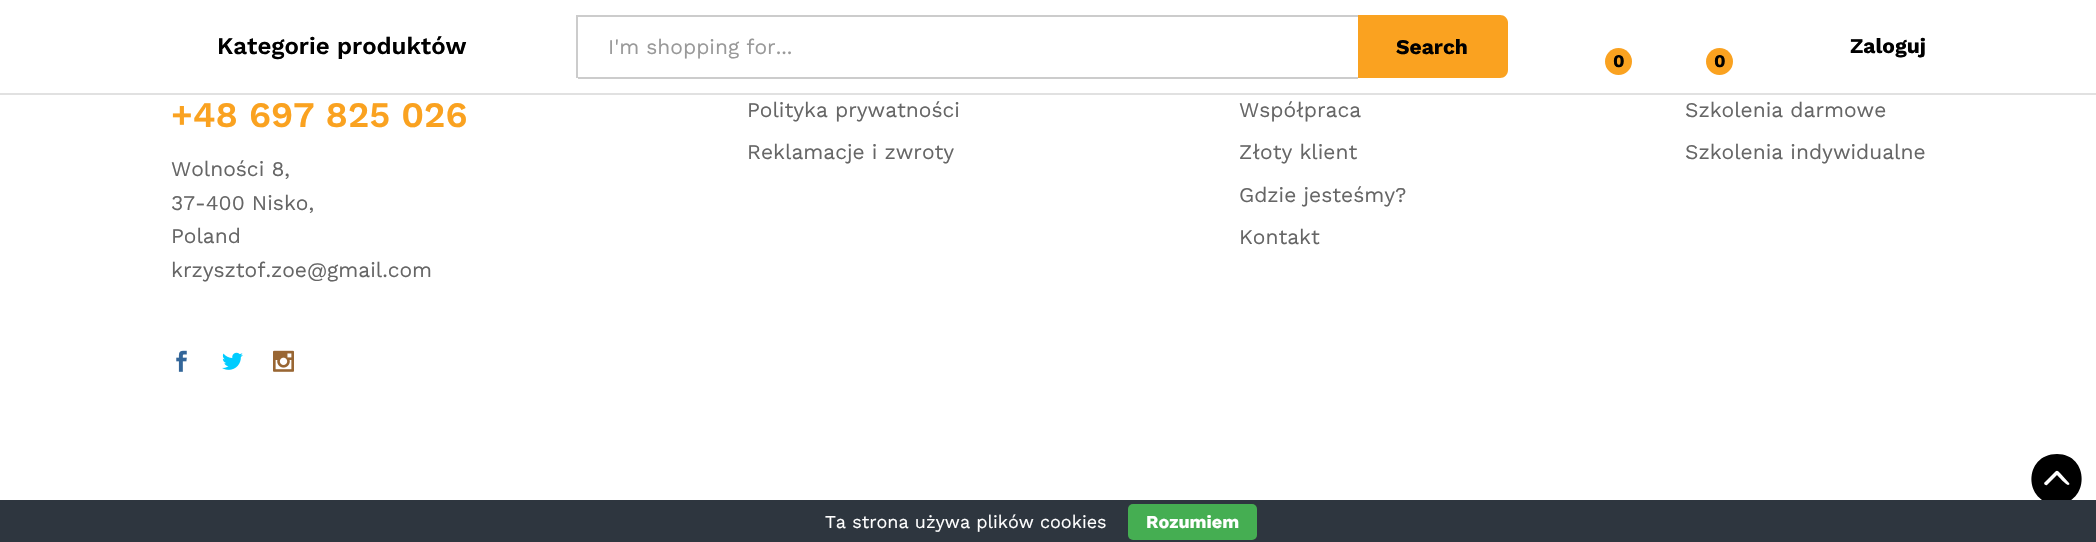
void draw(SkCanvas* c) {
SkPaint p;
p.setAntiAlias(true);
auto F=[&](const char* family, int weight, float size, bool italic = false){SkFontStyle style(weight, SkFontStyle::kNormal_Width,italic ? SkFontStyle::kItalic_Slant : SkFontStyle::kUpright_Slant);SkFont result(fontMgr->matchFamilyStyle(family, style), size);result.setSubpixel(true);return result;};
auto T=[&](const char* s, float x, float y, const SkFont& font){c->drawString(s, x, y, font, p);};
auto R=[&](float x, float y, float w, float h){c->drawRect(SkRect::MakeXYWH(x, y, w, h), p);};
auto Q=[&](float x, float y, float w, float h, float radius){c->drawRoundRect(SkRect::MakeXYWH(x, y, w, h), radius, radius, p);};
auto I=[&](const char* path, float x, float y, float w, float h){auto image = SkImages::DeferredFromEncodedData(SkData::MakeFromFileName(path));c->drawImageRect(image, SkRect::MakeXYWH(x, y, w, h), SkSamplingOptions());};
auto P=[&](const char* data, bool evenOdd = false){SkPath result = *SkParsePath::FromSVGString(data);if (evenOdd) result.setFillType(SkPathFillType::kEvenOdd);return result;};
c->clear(0xffffffff);
p.setColor(0xffe1e1e1);
R(0,93,2096,2);
auto f1 = F("Work Sans",600,24);
p.setColor(0xff000000);
T("Kategorie produktów",217,54,f1);
p.setColor(0xffcccccc);
R(576,15,2,63);
R(578,15,780,2);
R(578,77,780,2);
auto f2 = F("Work Sans",400,21);
p.setColor(0xff999999);
T("I'm shopping for...",608,54,f2);
p.setColor(0xfffaa220);
c->drawPath(P("M1358 15h142c4.5 0 8 3.5 8 8v47c0 4.5-3.5 8-8 8h-142z"),p);
auto f3 = F("Work Sans",700,21);
p.setColor(0xff000000);
T("Search",1396,54,f3);
T("Zaloguj",1850,53,f3);
p.setColor(0xfffaa220);
c->drawCircle(1618.5,61.5,13.5,p);
auto f4 = F("Work Sans",700,18);
p.setColor(0xff000000);
T("0",1613,67,f4);
p.setColor(0xfffaa220);
c->drawCircle(1719.5,61.5,13.5,p);
p.setColor(0xff000000);
T("0",1714,67,f4);
auto f5 = F("Work Sans",600,36);
p.setColor(0xfffaa220);
T("+48 697 825 026",171,127,f5);
p.setColor(0xff666666);
T("Wolności 8,",171,176,f2);
T("37-400 Nisko,",171,210,f2);
T("Poland",171,243,f2);
T("krzysztof.zoe@gmail.com",171,277,f2);
I("1.png",176,350,11,22);
I("2.png",222,352,21,18);
I("3.png",273,350,21,22);
T("Polityka prywatności",747,117,f2);
T("Reklamacje i zwroty",747,159,f2);
T("Współpraca",1239,117,f2);
T("Złoty klient",1239,159,f2);
T("Gdzie jesteśmy?",1239,202,f2);
T("Kontakt",1239,244,f2);
T("Szkolenia darmowe",1685,117,f2);
T("Szkolenia indywidualne",1685,159,f2);
p.setColor(0xff000000);
c->drawPath(P("M2057 504c-34 0-34-50 0-50c33 0 33 50 0 50zm-12-22c-2 1 0 4 2 3l10-10c1 1 9 10 11 10c1 0 2-1 1-2l-9-10c-3-3-3-3-6 0z"),p);
p.setColor(0xff2e363f);
R(0,500,2096,42);
auto f6 = F("Work Sans",400,18);
p.setColor(0xffffffff);
T("Ta strona używa plików cookies",825,528,f6);
p.setColor(0xff45ae52);
Q(1128,504,129,36,5);
p.setColor(0xffffffff);
T("Rozumiem",1146,528,f4);
}
